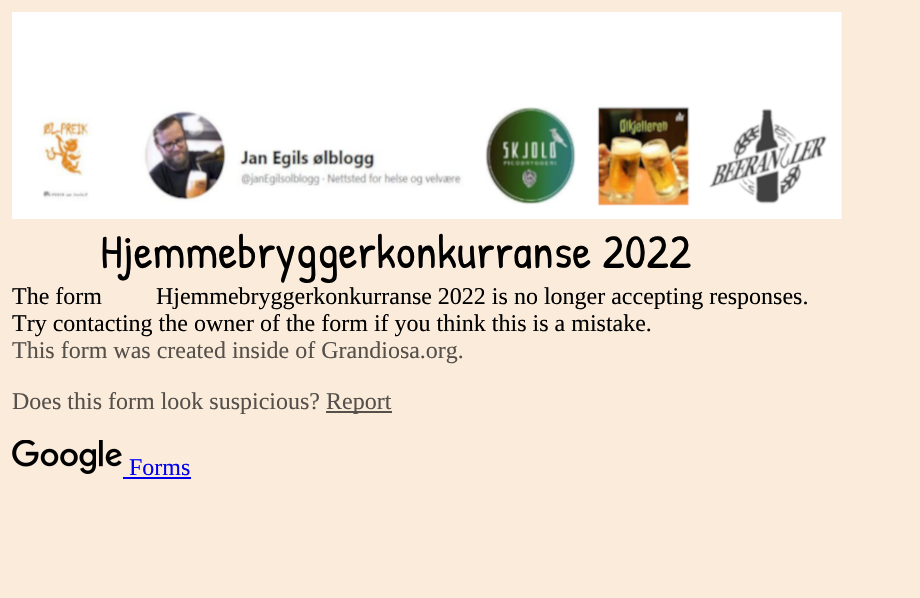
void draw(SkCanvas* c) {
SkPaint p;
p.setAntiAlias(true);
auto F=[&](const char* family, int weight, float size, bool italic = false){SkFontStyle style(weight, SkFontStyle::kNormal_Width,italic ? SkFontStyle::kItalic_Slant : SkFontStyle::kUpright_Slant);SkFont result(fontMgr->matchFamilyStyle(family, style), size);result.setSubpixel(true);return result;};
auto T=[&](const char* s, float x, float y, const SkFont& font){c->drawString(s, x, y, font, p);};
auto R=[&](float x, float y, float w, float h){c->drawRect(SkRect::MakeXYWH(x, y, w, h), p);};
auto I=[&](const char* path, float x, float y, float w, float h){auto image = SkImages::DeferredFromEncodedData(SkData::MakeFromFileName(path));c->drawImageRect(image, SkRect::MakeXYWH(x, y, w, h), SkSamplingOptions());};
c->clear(0xfffaebdb);
I("1.png",12,12,830,207);
auto f1 = F("Patrick Hand",400,48);
p.setColor(0xff000000);
T("Hjemmebryggerkonkurranse 2022",100,268,f1);
auto f2 = F("Liberation Serif",400,24);
T("The form         Hjemmebryggerkonkurranse 2022 is no longer accepting responses.",12,304,f2);
T("Try contacting the owner of the form if you think this is a mistake.",12,331,f2);
p.setColor(0xff55504a);
T("This form was created inside of Grandiosa.org.",12,358,f2);
T("Does this form look suspicious?",12,409,f2);
R(326,411,66,2);
T("Report",326,409,f2);
I("2.png",12,440,110,34);
p.setColor(0xff0000ee);
T("Forms",129,475,f2);
R(123,477,68,2);
}
